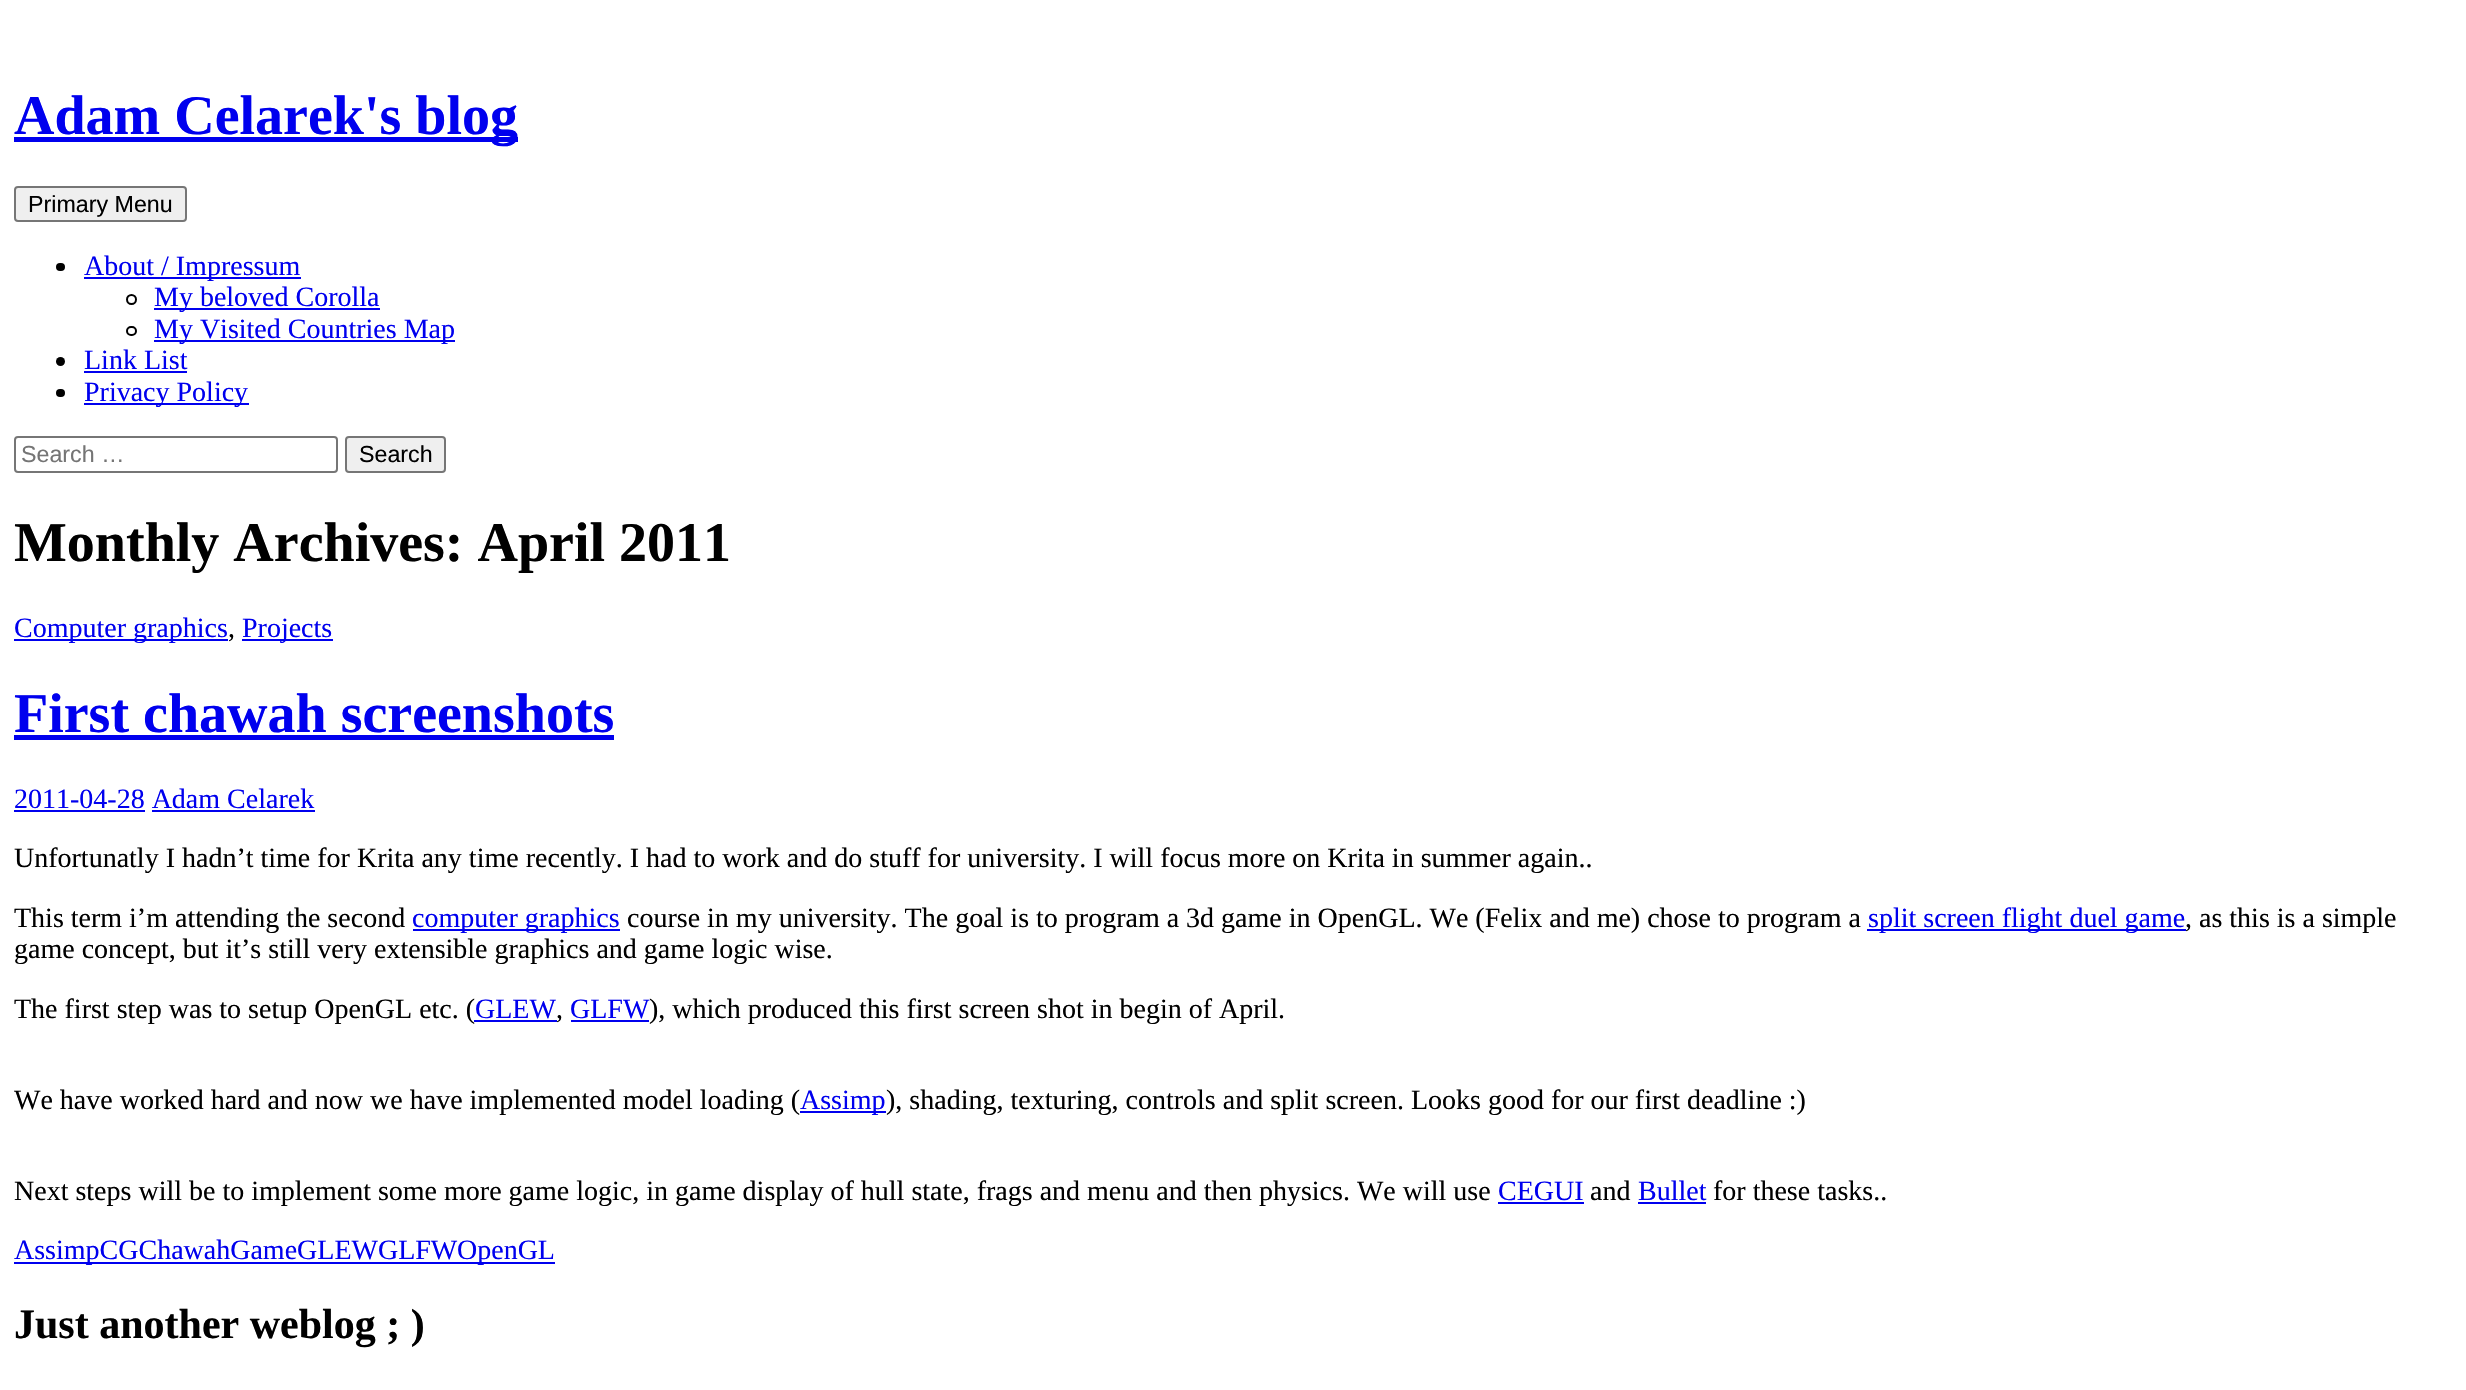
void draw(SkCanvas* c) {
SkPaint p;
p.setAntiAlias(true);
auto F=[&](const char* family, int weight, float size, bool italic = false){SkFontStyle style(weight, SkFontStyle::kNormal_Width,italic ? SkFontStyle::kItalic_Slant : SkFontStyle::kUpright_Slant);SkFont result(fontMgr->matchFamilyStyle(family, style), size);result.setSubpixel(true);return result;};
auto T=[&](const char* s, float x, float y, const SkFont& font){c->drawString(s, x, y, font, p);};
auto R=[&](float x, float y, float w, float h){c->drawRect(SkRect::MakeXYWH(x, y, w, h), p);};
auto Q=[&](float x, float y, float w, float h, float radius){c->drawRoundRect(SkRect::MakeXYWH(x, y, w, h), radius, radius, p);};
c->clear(0xffffffff);
p.setColor(0xff0000ee);
R(14,137,504,5);
auto f1 = F("Liberation Serif",700,56);
T("Adam Celarek's blog",14,134,f1);
p.setColor(0xffefefef);
c->drawRoundRect(SkRect::MakeXYWH(15,187,171,34),3,3,p);
p.setStroke(true);
p.setStrokeWidth(2);
p.setColor(0xff767676);
c->drawRoundRect(SkRect::MakeXYWH(15,187,171,34),3,3,p);
auto f2 = F("Liberation Sans",400,23.25);
p.setStroke(false);
p.setColor(0xff000000);
T("Primary Menu",28,212,f2);
Q(56,263,9,8,4);
p.setColor(0xff0000ee);
R(84,277,217,2);
auto f3 = F("Liberation Serif",400,28);
T("About / Impressum",84,275,f3);
p.setStroke(true);
p.setColor(0xff000000);
c->drawCircle(131.5,299.5,4.5,p);
p.setStroke(false);
p.setColor(0xff0000ee);
R(154,308,226,2);
T("My beloved Corolla",154,306,f3);
p.setStroke(true);
p.setColor(0xff000000);
c->drawRoundRect(SkRect::MakeXYWH(127,327,9,8),4,4,p);
p.setStroke(false);
p.setColor(0xff0000ee);
R(154,340,301,2);
T("My Visited Countries Map",154,338,f3);
p.setColor(0xff000000);
c->drawCircle(60.5,361.5,4.5,p);
p.setColor(0xff0000ee);
T("Link List",84,369,f3);
R(84,371,103,2);
p.setColor(0xff000000);
Q(56,389,9,8,4);
p.setColor(0xff0000ee);
R(84,403,165,2);
T("Privacy Policy",84,401,f3);
p.setStroke(true);
p.setColor(0xff767676);
c->drawRoundRect(SkRect::MakeXYWH(15,437,322,35),3,3,p);
p.setStroke(false);
p.setColor(0xff757575);
T("Search …",21,462,f2);
p.setColor(0xffefefef);
c->drawRoundRect(SkRect::MakeXYWH(346,437,99,35),3,3,p);
p.setStroke(true);
p.setColor(0xff767676);
c->drawRoundRect(SkRect::MakeXYWH(346,437,99,35),3,3,p);
p.setStroke(false);
p.setColor(0xff000000);
T("Search",359,462,f2);
T("Monthly Archives: April 2011",14,561,f1);
p.setColor(0xff0000ee);
R(14,639,214,2);
T("Computer graphics",14,637,f3);
p.setColor(0xff000000);
T(",",228,637,f3);
p.setColor(0xff0000ee);
R(242,639,91,2);
T("Projects",242,637,f3);
T("First chawah screenshots",14,732,f1);
R(14,735,600,5);
T("2011-04-28 Adam Celarek",14,808,f3);
R(14,810,131,2);
R(152,810,163,2);
p.setColor(0xff000000);
T("Unfortunatly I hadn’t time for Krita any time recently. I had to work and do stuff for university. I will focus more on Krita in summer again..",14,867,f3);
T("This term i’m attending the second",14,927,f3);
p.setColor(0xff0000ee);
R(413,929,207,2);
T("computer graphics",412,927,f3);
p.setColor(0xff000000);
T("course in my university. The goal is to program a 3d game in OpenGL. We (Felix and me) chose to program a",627,927,f3);
p.setColor(0xff0000ee);
R(1867,929,319,2);
T("split screen flight duel game",1868,927,f3);
p.setColor(0xff000000);
T(", as this is a simple",2185,927,f3);
T("game concept, but it’s still very extensible graphics and game logic wise.",14,958,f3);
T("The first step was to setup OpenGL etc. (",14,1018,f3);
p.setColor(0xff0000ee);
T("GLEW",475,1018,f3);
R(474,1020,83,2);
p.setColor(0xff000000);
T(",",556,1018,f3);
p.setColor(0xff0000ee);
T("GLFW",570,1018,f3);
R(571,1020,78,2);
p.setColor(0xff000000);
T("), which produced this first screen shot in begin of April.",649,1018,f3);
T("We have worked hard and now we have implemented model loading (",14,1109,f3);
p.setColor(0xff0000ee);
R(800,1111,86,2);
T("Assimp",800,1109,f3);
p.setColor(0xff000000);
T("), shading, texturing, controls and split screen. Looks good for our first deadline :)",886,1109,f3);
T("Next steps will be to implement some more game logic, in game display of hull state, frags and menu and then physics. We will use",14,1200,f3);
p.setColor(0xff0000ee);
T("CEGUI",1498,1200,f3);
R(1498,1202,86,2);
p.setColor(0xff000000);
T("and",1590,1200,f3);
p.setColor(0xff0000ee);
T("Bullet",1638,1200,f3);
R(1638,1202,68,2);
p.setColor(0xff000000);
T("for these tasks..",1713,1200,f3);
p.setColor(0xff0000ee);
R(14,1262,443,2);
T("AssimpCGChawahGameGLEWGLFW",14,1259,f3);
R(457,1262,98,2);
T("OpenGL",457,1259,f3);
auto f4 = F("Liberation Serif",700,42);
p.setColor(0xff000000);
T("Just another weblog ; )",14,1338,f4);
}
